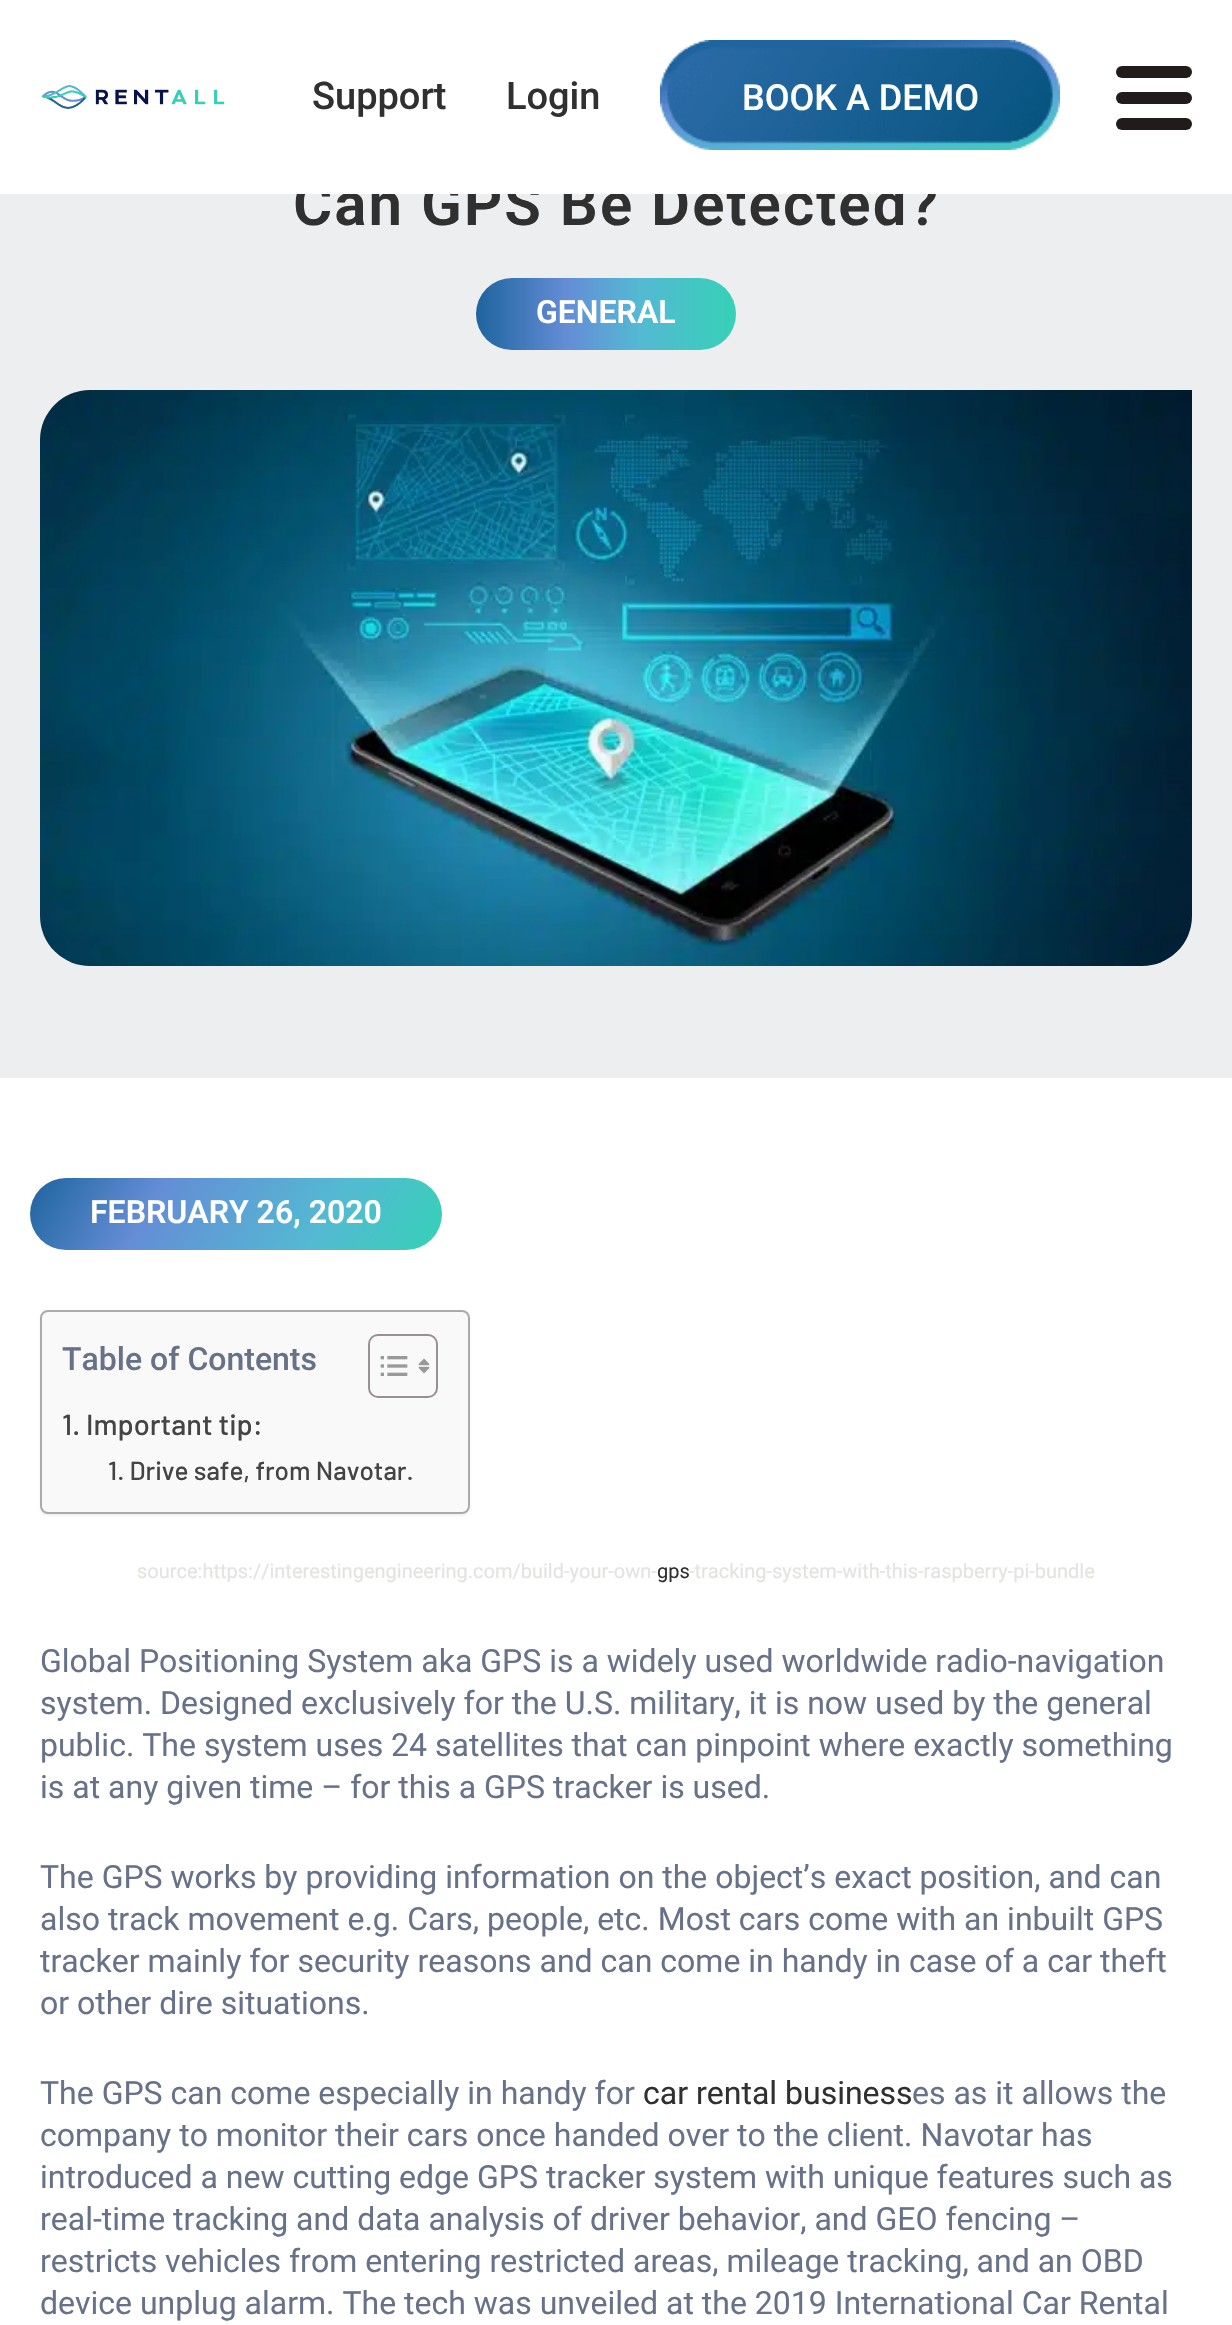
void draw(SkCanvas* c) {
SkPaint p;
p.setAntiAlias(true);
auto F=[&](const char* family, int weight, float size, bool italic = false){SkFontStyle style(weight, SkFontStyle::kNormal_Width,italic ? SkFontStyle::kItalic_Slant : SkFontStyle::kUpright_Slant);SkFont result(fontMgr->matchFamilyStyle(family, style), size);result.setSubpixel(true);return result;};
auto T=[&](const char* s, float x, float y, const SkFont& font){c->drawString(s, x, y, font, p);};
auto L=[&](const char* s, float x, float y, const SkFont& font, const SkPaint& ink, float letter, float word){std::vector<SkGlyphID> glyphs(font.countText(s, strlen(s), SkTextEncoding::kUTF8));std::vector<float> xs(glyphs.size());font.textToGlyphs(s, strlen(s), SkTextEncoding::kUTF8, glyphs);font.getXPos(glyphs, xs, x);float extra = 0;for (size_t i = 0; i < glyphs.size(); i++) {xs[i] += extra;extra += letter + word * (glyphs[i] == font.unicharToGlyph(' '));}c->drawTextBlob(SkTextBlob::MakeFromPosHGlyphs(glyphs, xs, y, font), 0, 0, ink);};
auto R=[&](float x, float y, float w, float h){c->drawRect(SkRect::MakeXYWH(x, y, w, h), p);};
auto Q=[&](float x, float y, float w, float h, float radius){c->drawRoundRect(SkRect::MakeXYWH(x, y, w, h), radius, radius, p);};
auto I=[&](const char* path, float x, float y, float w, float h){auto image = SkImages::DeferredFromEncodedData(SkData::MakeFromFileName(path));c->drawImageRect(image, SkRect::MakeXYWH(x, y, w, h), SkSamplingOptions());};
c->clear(0xffffffff);
p.setColor(0xffedeef0);
R(0,194,1232,884);
auto f1 = F("Roboto",600,60);
p.setColor(0xff2f302f);
L("Can GPS Be Detected?",293,225,f1,p,2,0);
p.setColor(0xffffffff);
R(296,180,640,14);
I("1.png",41,85,184,24);
auto f2 = F("Roboto",500,38);
p.setColor(0xff2f302f);
T("Support",312,109,f2);
T("Login",506,109,f2);
I("2.png",660,40,400,110);
auto f3 = F("Roboto",500,36);
p.setColor(0xffffffff);
T("BOOK A DEMO",742,110,f3);
p.setColor(0xff211b1b);
Q(1116,66,76,12,6);
Q(1116,92,76,12,6);
Q(1116,118,76,12,6);
{
const SkColor colors[] = {0xff1e649e,0xff648dd6,0xff54b9d3,0xff36d1b7};
const float stops[] = {0,.35,.63,1};
const SkPoint ends[] = {{476,314}, {736,314}};
p.setShader(SkGradientShader::MakeLinear(ends, colors, stops, 4, SkTileMode::kClamp));
p.setAlpha(255);
}
Q(476,278,260,72,36);
auto f4 = F("Roboto",600,32);
p.setShader(nullptr);
p.setColor(0xffffffff);
T("GENERAL",536,323,f4);
I("3.png",40,390,1152,576);
{
const SkColor colors[] = {0xff1e649e,0xff648dd6,0xff54b9d3,0xff36d1b7};
const float stops[] = {0,.3,.7,1};
const SkPoint ends[] = {{66,1116}, {406,1312}};
p.setShader(SkGradientShader::MakeLinear(ends, colors, stops, 4, SkTileMode::kClamp));
p.setAlpha(255);
}
Q(30,1178,412,72,36);
p.setShader(nullptr);
p.setColor(0xffffffff);
T("FEBRUARY 26, 2020",90,1223,f4);
p.setColor(0x0d000000);
p.setMaskFilter(SkMaskFilter::MakeBlur(kNormal_SkBlurStyle, 1));
c->drawRoundRect(SkRect::MakeXYWH(40,1312,430,204),8,8,p);
p.setMaskFilter(nullptr);
p.setColor(0xfff9f9f9);
c->drawRoundRect(SkRect::MakeXYWH(41,1311,428,202),7,7,p);
p.setStroke(true);
p.setStrokeWidth(2);
p.setColor(0xffaaaaaa);
c->drawRoundRect(SkRect::MakeXYWH(41,1311,428,202),7,7,p);
auto f5 = F("Roboto",500,32);
p.setStroke(false);
p.setColor(0xff677289);
T("Table of Contents",62,1370,f5);
p.setStroke(true);
p.setColor(0xff999191);
c->drawRoundRect(SkRect::MakeXYWH(369,1335,68,62),9,9,p);
I("4.png",380,1356,28,20);
I("5.png",418,1358,12,16);
auto f6 = F("Barlow",500,29);
p.setStroke(false);
p.setColor(0xff444444);
T("1. Important tip:",62,1435,f6);
auto f7 = F("Barlow",500,26);
T("1. Drive safe, from Navotar.",108,1480,f7);
auto f8 = F("Roboto",400,20);
p.setColor(0xffe3e3e0);
T("source:https://interestingengineering.com/build-your-own-",137,1578,f8);
p.setColor(0xff2f302f);
T("gps",657,1578,f8);
p.setColor(0xffe3e3e0);
T("-tracking-system-with-this-raspberry-pi-bundle",689,1578,f8);
auto f9 = F("Roboto",400,32);
p.setColor(0xff677289);
T("Global Positioning System aka GPS is a widely used worldwide radio-navigation",40,1672,f9);
T("system. Designed exclusively for the U.S. military, it is now used by the general",40,1714,f9);
T("public. The system uses 24 satellites that can pinpoint where exactly something",40,1756,f9);
T("is at any given time – for this a GPS tracker is used.",40,1798,f9);
T("The GPS works by providing information on the object’s exact position, and can",40,1888,f9);
T("also track movement e.g. Cars, people, etc. Most cars come with an inbuilt GPS",40,1930,f9);
T("tracker mainly for security reasons and can come in handy in case of a car theft",40,1972,f9);
T("or other dire situations.",40,2014,f9);
T("The GPS can come especially in handy for",40,2104,f9);
p.setColor(0xff2f302f);
T("car rental business",643,2104,f9);
p.setColor(0xff677289);
T("es as it allows the",912,2104,f9);
T("company to monitor their cars once handed over to the client. Navotar has",40,2146,f9);
T("introduced a new cutting edge GPS tracker system with unique features such as",40,2188,f9);
T("real-time tracking and data analysis of driver behavior, and GEO fencing –",40,2230,f9);
T("restricts vehicles from entering restricted areas, mileage tracking, and an OBD",40,2272,f9);
T("device unplug alarm. The tech was unveiled at the 2019 International Car Rental",40,2314,f9);
}
